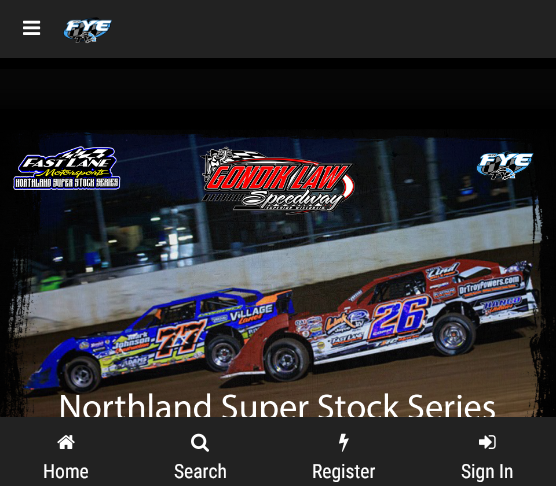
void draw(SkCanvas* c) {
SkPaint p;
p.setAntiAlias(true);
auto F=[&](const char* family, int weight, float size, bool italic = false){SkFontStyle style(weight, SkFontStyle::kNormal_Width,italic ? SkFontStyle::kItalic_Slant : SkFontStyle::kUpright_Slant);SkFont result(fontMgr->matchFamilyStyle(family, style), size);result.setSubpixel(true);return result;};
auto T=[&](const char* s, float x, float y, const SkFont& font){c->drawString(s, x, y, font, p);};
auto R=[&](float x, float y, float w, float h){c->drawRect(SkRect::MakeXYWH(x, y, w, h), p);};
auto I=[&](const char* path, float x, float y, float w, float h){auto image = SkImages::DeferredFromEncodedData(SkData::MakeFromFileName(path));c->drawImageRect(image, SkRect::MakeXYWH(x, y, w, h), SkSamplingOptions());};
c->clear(0xff000000);
p.setColor(0xff222222);
R(0,0,556,58);
I("1.png",23,20,18,15);
I("2.png",63,17,49,27);
{
const SkColor colors[] = {0xff060606,0x2b0a0a0a,0x000a0a0a,0x000a0a0a,0x2b0a0a0a,0xff060606};
const float stops[] = {.04,.1,.14,.87,.9,.96};
const SkPoint ends[] = {{278,69}, {278,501}};
p.setShader(SkGradientShader::MakeLinear(ends, colors, stops, 6, SkTileMode::kClamp));
p.setAlpha(255);
}
R(0,69,556,40);
I("3.png",0,129,556,288);
p.setShader(nullptr);
p.setColor(0xff222222);
R(0,417,556,69);
I("4.png",57,435,18,14);
auto f1 = F("Roboto Condensed",400,19.5);
p.setColor(0xffffffff);
T("Home",43,478,f1);
I("5.png",191,433,18,19);
T("Search",174,478,f1);
I("6.png",339,433,10,19);
T("Register",312,478,f1);
I("7.png",479,435,17,14);
T("Sign In",461,478,f1);
}
